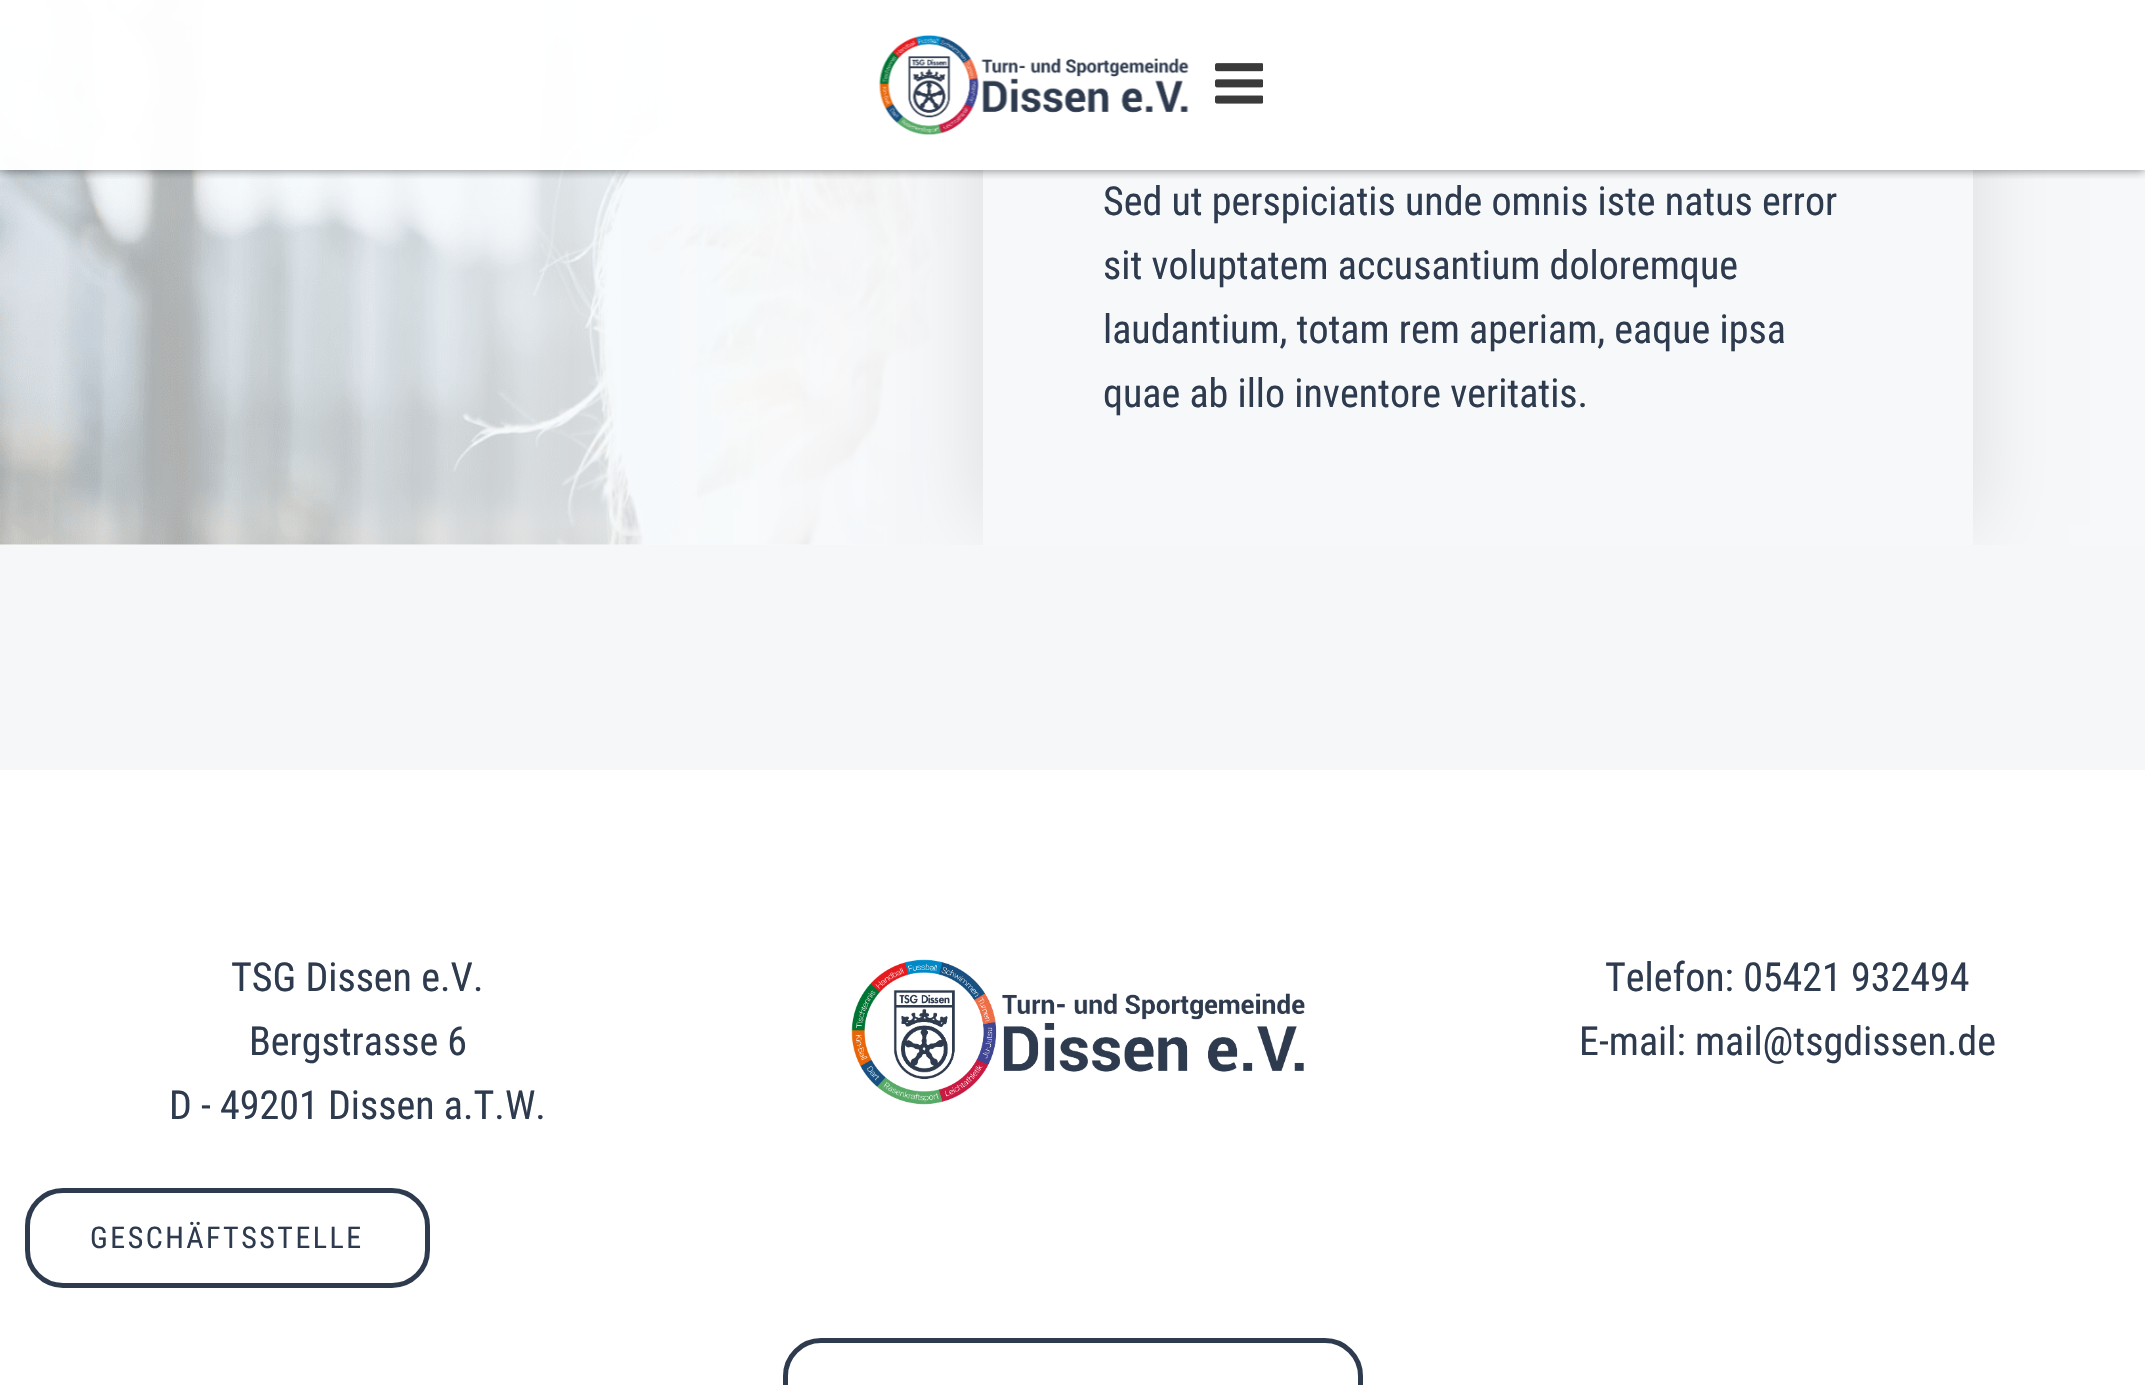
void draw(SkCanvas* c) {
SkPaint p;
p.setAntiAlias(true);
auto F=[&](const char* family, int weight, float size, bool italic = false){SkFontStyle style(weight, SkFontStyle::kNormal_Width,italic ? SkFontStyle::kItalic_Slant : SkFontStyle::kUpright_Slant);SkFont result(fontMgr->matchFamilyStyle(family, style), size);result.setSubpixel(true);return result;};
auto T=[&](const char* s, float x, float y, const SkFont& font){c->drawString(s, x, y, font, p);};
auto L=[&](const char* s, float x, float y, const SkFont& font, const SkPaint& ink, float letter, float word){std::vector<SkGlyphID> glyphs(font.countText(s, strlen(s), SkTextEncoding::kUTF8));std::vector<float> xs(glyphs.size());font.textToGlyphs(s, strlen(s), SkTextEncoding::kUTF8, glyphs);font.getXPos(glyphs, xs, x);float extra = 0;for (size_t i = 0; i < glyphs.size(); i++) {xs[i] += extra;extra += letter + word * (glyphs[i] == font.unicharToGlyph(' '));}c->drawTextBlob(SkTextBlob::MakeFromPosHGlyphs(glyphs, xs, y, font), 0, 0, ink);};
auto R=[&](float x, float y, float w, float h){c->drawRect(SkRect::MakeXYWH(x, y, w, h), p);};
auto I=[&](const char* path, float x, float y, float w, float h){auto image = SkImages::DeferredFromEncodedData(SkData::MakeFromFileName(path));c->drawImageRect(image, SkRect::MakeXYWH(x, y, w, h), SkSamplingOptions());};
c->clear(0xffffffff);
p.setColor(0xfff5f7f8);
R(0,544,2145,226);
I("3.png",0,0,954,545);
{
const SkColor colors[] = {0x80ffffff,0xfff6f8fa};
const float stops[] = {0,.45};
const SkPoint ends[] = {{0,-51}, {2145,-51}};
p.setShader(SkGradientShader::MakeLinear(ends, colors, stops, 2, SkTileMode::kClamp));
p.setAlpha(255);
}
R(0,0,2145,545);
c->save();
c->clipRect(SkRect::MakeXYWH(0,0,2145,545));
p.setShader(nullptr);
p.setColor(0x1a000000);
p.setMaskFilter(SkMaskFilter::MakeBlur(kNormal_SkBlurStyle, 37.5));
c->drawRect(SkRect::MakeXYWH(978,-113,1000,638),p);
p.setMaskFilter(nullptr);
c->restore();
p.setColor(0xfff6f8fa);
R(983,0,990,545);
c->save();
c->clipRect(SkRect::MakeXYWH(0,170,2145,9));
p.setColor(0x80000000);
p.setMaskFilter(SkMaskFilter::MakeBlur(kNormal_SkBlurStyle, 5));
c->drawRect(SkRect::MakeXYWH(0,0,2145,170),p);
p.setMaskFilter(nullptr);
c->restore();
p.setColor(0xf5ffffff);
R(0,0,2145,170);
I("1.png",878,35,311,100);
I("2.png",1215,63,48,41);
auto f1 = F("Roboto Condensed",400,40);
p.setColor(0xff2e3b4e);
T("Sed ut perspiciatis unde omnis iste natus error",1103,215,f1);
T("sit voluptatem accusantium doloremque",1103,279,f1);
T("laudantium, totam rem aperiam, eaque ipsa",1103,343,f1);
T("quae ab illo inventore veritatis.",1103,407,f1);
T("TSG Dissen e.V.",231,991,f1);
T("Bergstrasse 6",249,1055,f1);
T("D - 49201 Dissen a.T.W.",169,1119,f1);
I("4.png",851,959,454,146);
T("Telefon: 05421 932494",1605,991,f1);
T("E-mail: mail@tsgdissen.de",1579,1055,f1);
p.setStroke(true);
p.setStrokeWidth(5);
c->drawRoundRect(SkRect::MakeXYWH(27.5,1190.5,400,95),35.5,35.5,p);
auto f2 = F("Roboto Condensed",400,30);
p.setStroke(false);
L("GESCHÄFTSSTELLE",90,1248,f2,p,2.5,0);
p.setStroke(true);
c->drawRoundRect(SkRect::MakeXYWH(785.5,1340.5,575,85),35.5,35.5,p);
}
